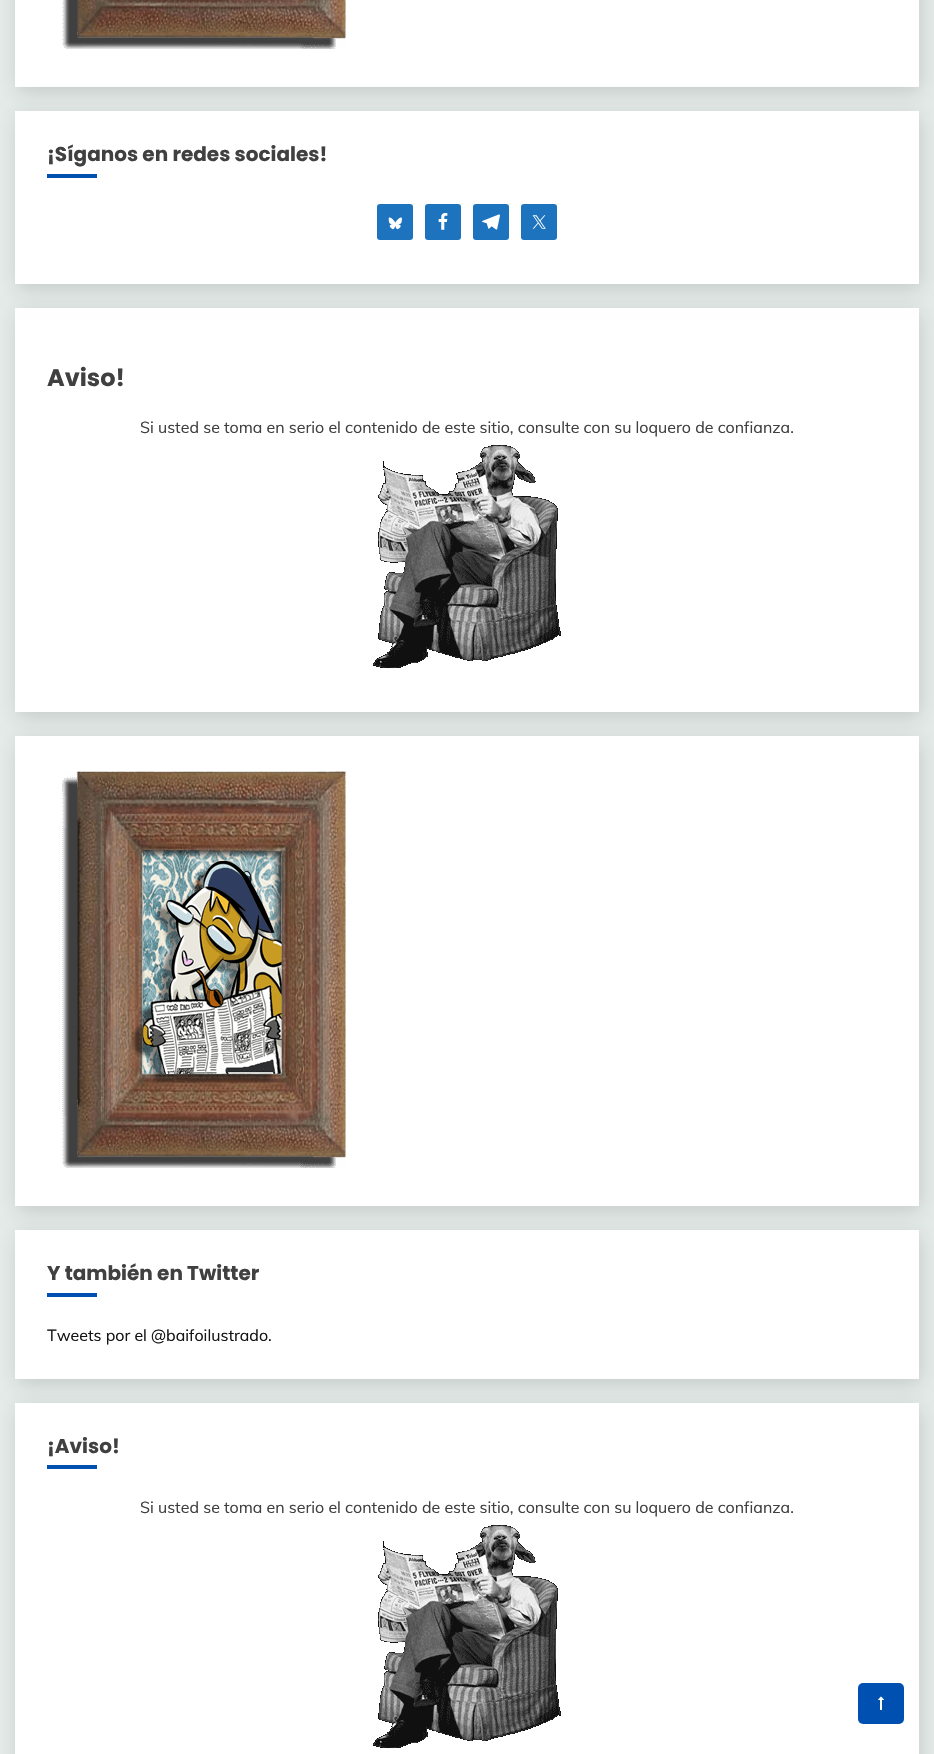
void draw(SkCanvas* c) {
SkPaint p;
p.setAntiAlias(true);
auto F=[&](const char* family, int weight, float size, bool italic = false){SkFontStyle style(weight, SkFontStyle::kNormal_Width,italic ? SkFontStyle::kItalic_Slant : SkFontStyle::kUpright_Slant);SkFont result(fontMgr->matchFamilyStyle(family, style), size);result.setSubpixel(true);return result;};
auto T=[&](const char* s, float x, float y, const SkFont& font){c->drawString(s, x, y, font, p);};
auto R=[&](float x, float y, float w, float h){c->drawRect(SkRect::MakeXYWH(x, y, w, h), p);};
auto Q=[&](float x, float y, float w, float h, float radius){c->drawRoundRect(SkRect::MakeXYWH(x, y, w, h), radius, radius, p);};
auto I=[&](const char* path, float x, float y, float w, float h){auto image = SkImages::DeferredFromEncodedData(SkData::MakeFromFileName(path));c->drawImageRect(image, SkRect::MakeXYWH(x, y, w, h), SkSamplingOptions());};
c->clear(0xffe5ece9);
p.setColor(0x24000000);
p.setMaskFilter(SkMaskFilter::MakeBlur(kNormal_SkBlurStyle, 10));
c->drawRect(SkRect::MakeXYWH(17,-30,904,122),p);
p.setMaskFilter(nullptr);
p.setColor(0xffffffff);
R(15,0,904,87);
I("1.png",62,0,284,49);
p.setColor(0x24000000);
p.setMaskFilter(SkMaskFilter::MakeBlur(kNormal_SkBlurStyle, 10));
c->drawRect(SkRect::MakeXYWH(17,313,904,404),p);
p.setMaskFilter(nullptr);
p.setColor(0xffffffff);
R(15,308,904,404);
p.setColor(0x24000000);
p.setMaskFilter(SkMaskFilter::MakeBlur(kNormal_SkBlurStyle, 10));
c->drawRect(SkRect::MakeXYWH(17,116,904,173),p);
p.setMaskFilter(nullptr);
p.setColor(0xffffffff);
R(15,111,904,173);
auto f1 = F("Poppins",700,20);
p.setColor(0xff404040);
T("¡Síganos en redes sociales!",47,161,f1);
p.setColor(0xff0050b2);
R(47,174,50,4);
p.setColor(0xff1e73be);
Q(377,204,36,36,3);
I("2.png",388,217,14,13);
Q(425,204,36,36,3);
I("3.png",438,213,10,17);
Q(473,204,36,36,3);
I("4.png",482,214,18,16);
Q(521,204,36,36,3);
I("5.png",532,215,14,14);
auto f2 = F("Poppins",700,24);
p.setColor(0xff404040);
T("Aviso!",47,386,f2);
auto f3 = F("Muli",400,16);
T("Si usted se toma en serio el contenido de este sitio, consulte con su loquero de confianza.",140,433,f3);
I("6.png",373,445,188,223);
p.setColor(0x24000000);
p.setMaskFilter(SkMaskFilter::MakeBlur(kNormal_SkBlurStyle, 10));
c->drawRect(SkRect::MakeXYWH(17,741,904,470),p);
p.setMaskFilter(nullptr);
p.setColor(0xffffffff);
R(15,736,904,470);
I("7.png",62,771,284,397);
p.setColor(0x24000000);
p.setMaskFilter(SkMaskFilter::MakeBlur(kNormal_SkBlurStyle, 10));
c->drawRect(SkRect::MakeXYWH(17,1235,904,149),p);
p.setMaskFilter(nullptr);
p.setColor(0xffffffff);
R(15,1230,904,149);
p.setColor(0xff404040);
T("Y también en Twitter",47,1280,f1);
p.setColor(0xff0050b2);
R(47,1293,50,4);
p.setColor(0xff141413);
T("Tweets por el @baifoilustrado.",47,1341,f3);
p.setColor(0x24000000);
p.setMaskFilter(SkMaskFilter::MakeBlur(kNormal_SkBlurStyle, 10));
c->drawRect(SkRect::MakeXYWH(17,1408,904,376),p);
p.setMaskFilter(nullptr);
p.setColor(0xffffffff);
R(15,1403,904,351);
p.setColor(0xff404040);
T("¡Aviso!",47,1453,f1);
p.setColor(0xff0050b2);
R(47,1465,50,4);
p.setColor(0xff404040);
T("Si usted se toma en serio el contenido de este sitio, consulte con su loquero de confianza.",140,1513,f3);
I("6.png",373,1525,188,223);
p.setColor(0xff0050b2);
Q(858,1683,46,41,5);
I("8.png",878,1696,6,14);
}
